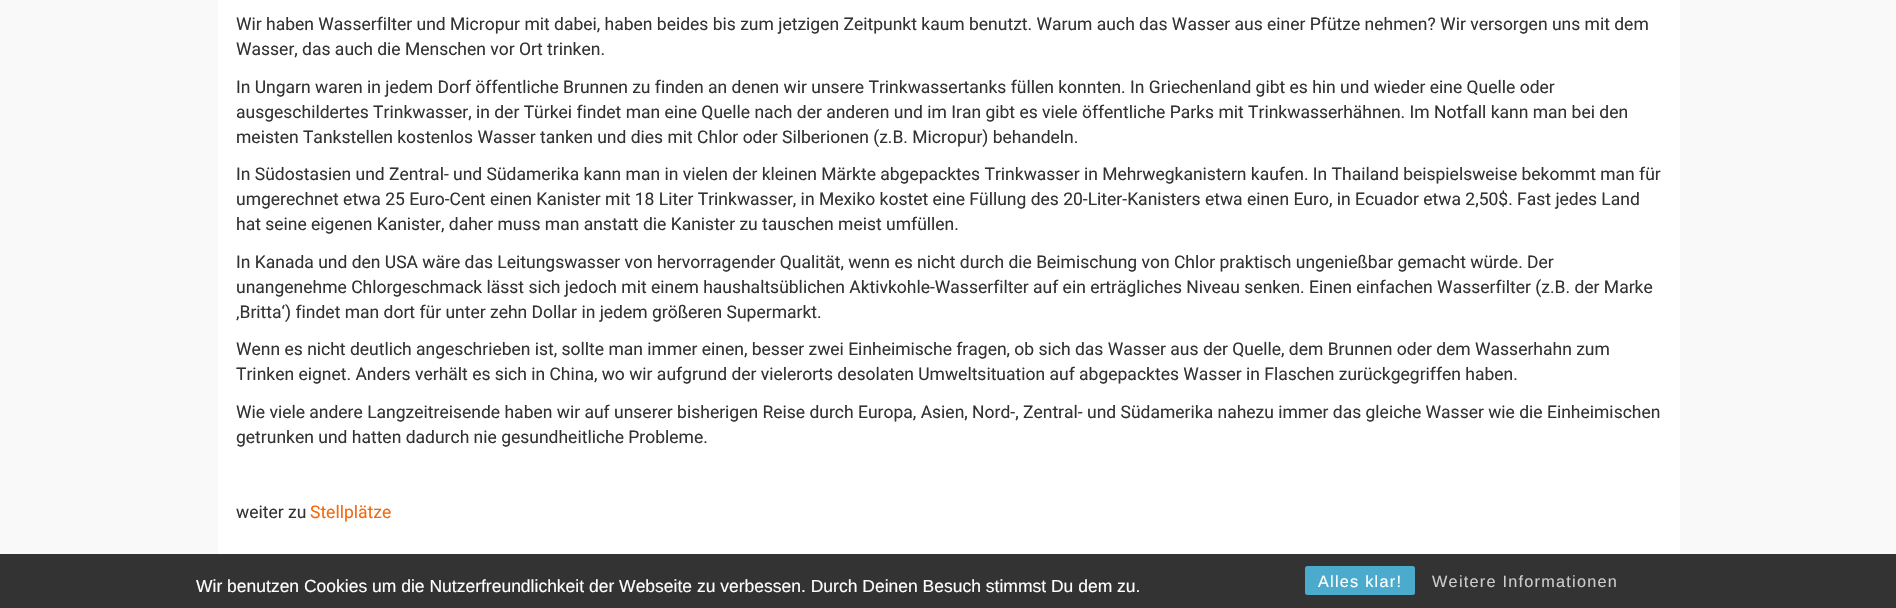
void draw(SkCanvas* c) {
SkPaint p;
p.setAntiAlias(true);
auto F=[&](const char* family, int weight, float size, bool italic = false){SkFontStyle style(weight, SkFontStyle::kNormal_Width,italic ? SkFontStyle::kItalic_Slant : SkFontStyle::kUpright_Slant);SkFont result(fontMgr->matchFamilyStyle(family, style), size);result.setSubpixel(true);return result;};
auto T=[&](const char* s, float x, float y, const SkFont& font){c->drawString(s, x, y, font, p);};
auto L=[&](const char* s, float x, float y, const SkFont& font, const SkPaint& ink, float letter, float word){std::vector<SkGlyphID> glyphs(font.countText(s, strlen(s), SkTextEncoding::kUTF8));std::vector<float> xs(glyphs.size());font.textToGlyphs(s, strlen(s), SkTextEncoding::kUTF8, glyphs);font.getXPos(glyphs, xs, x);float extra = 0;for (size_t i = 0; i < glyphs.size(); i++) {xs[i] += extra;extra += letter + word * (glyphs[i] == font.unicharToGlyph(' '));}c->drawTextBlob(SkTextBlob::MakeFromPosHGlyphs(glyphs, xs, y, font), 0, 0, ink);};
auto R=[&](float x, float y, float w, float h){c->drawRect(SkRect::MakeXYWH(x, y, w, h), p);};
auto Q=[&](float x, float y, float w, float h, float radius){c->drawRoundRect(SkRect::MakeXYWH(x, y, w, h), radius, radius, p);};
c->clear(0xfff9f9f9);
p.setColor(0xffffffff);
R(218,0,1462,554);
auto f1 = F("Roboto",400,17.5);
p.setColor(0xff333333);
T("Wir haben Wasserfilter und Micropur mit dabei, haben beides bis zum jetzigen Zeitpunkt kaum benutzt. Warum auch das Wasser aus einer Pfütze nehmen? Wir versorgen uns mit dem",236,30,f1);
T("Wasser, das auch die Menschen vor Ort trinken.",236,55,f1);
T("In Ungarn waren in jedem Dorf öffentliche Brunnen zu finden an denen wir unsere Trinkwassertanks füllen konnten. In Griechenland gibt es hin und wieder eine Quelle oder",236,93,f1);
T("ausgeschildertes Trinkwasser, in der Türkei findet man eine Quelle nach der anderen und im Iran gibt es viele öffentliche Parks mit Trinkwasserhähnen. Im Notfall kann man bei den",236,118,f1);
T("meisten Tankstellen kostenlos Wasser tanken und dies mit Chlor oder Silberionen (z.B. Micropur) behandeln.",236,143,f1);
T("In Südostasien und Zentral- und Südamerika kann man in vielen der kleinen Märkte abgepacktes Trinkwasser in Mehrwegkanistern kaufen. In Thailand beispielsweise bekommt man für",236,180,f1);
T("umgerechnet etwa 25 Euro-Cent einen Kanister mit 18 Liter Trinkwasser, in Mexiko kostet eine Füllung des 20-Liter-Kanisters etwa einen Euro, in Ecuador etwa 2,50$. Fast jedes Land",236,205,f1);
T("hat seine eigenen Kanister, daher muss man anstatt die Kanister zu tauschen meist umfüllen.",236,230,f1);
T("In Kanada und den USA wäre das Leitungswasser von hervorragender Qualität, wenn es nicht durch die Beimischung von Chlor praktisch ungenießbar gemacht würde. Der",236,268,f1);
T("unangenehme Chlorgeschmack lässt sich jedoch mit einem haushaltsüblichen Aktivkohle-Wasserfilter auf ein erträgliches Niveau senken. Einen einfachen Wasserfilter (z.B. der Marke",236,293,f1);
T("‚Britta‘) findet man dort für unter zehn Dollar in jedem größeren Supermarkt.",236,318,f1);
T("Wenn es nicht deutlich angeschrieben ist, sollte man immer einen, besser zwei Einheimische fragen, ob sich das Wasser aus der Quelle, dem Brunnen oder dem Wasserhahn zum",236,355,f1);
T("Trinken eignet. Anders verhält es sich in China, wo wir aufgrund der vielerorts desolaten Umweltsituation auf abgepacktes Wasser in Flaschen zurückgegriffen haben.",236,380,f1);
T("Wie viele andere Langzeitreisende haben wir auf unserer bisherigen Reise durch Europa, Asien, Nord-, Zentral- und Südamerika nahezu immer das gleiche Wasser wie die Einheimischen",236,418,f1);
T("getrunken und hatten dadurch nie gesundheitliche Probleme.",236,443,f1);
T("weiter zu",236,518,f1);
p.setColor(0xfff3690e);
T("Stellplätze",310,518,f1);
p.setColor(0xff333333);
R(0,554,1896,54);
auto f2 = F("Liberation Sans",400,17.5);
p.setColor(0xffffffff);
T("Wir benutzen Cookies um die Nutzerfreundlichkeit der Webseite zu verbessen. Durch Deinen Besuch stimmst Du dem zu.",196,592,f2);
p.setColor(0xff4babcc);
Q(1305,566,110,29,2.5);
auto f3 = F("Liberation Sans",400,16.25);
p.setColor(0xffffffff);
L("Alles klar!",1318,587,f3,p,1.25,0);
p.setColor(0xffcccccc);
L("Weitere Informationen",1432,587,f3,p,1.25,0);
}
